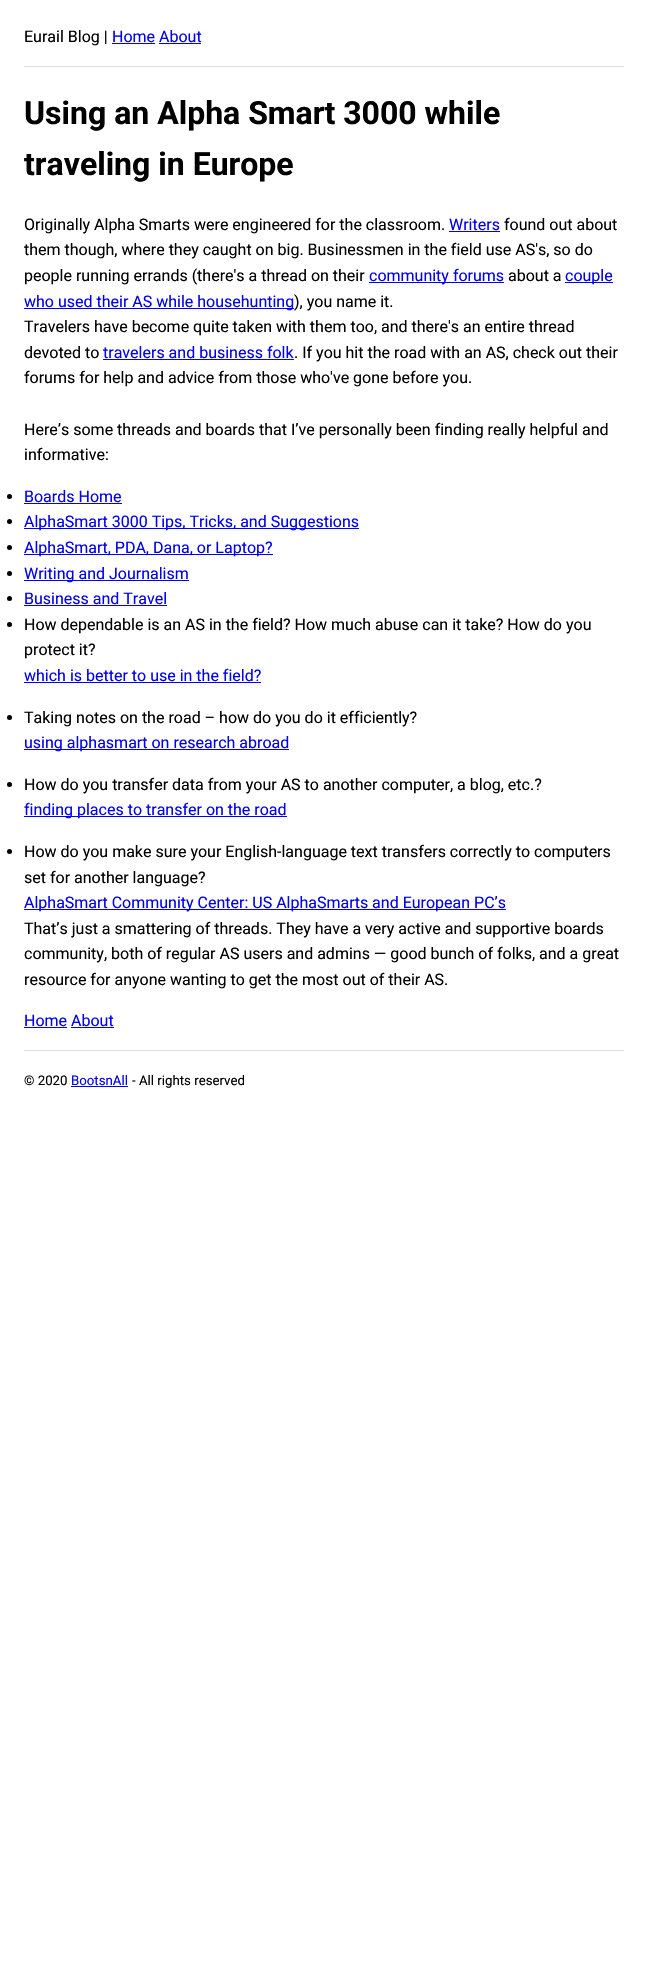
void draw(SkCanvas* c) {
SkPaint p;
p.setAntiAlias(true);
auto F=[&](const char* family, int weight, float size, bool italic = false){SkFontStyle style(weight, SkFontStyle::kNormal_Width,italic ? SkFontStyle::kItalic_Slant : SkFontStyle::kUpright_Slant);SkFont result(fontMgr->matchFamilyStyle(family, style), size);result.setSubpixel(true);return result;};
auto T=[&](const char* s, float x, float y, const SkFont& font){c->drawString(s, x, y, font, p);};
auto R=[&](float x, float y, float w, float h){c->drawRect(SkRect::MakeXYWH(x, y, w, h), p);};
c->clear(0xffffffff);
auto f1 = F("Roboto",400,16);
p.setColor(0xff000000);
T("Eurail Blog |",24,42,f1);
p.setColor(0xff0000ee);
T("Home About",112,42,f1);
R(112,43,43,1);
R(159,43,42,1);
p.setColor(0xffdddddd);
R(24,66,600,1);
auto f2 = F("Roboto",700,32);
p.setColor(0xff000000);
T("Using an Alpha Smart 3000 while",24,124,f2);
T("traveling in Europe",24,175,f2);
T("Originally Alpha Smarts were engineered for the classroom.",24,230,f1);
p.setColor(0xff0000ee);
T("Writers",449,230,f1);
R(449,231,51,1);
p.setColor(0xff000000);
T("found out about",504,230,f1);
T("them though, where they caught on big. Businessmen in the field use AS's, so do",24,255,f1);
T("people running errands (there's a thread on their",24,281,f1);
p.setColor(0xff0000ee);
R(369,282,135,1);
T("community forums",369,281,f1);
p.setColor(0xff000000);
T("about a",508,281,f1);
p.setColor(0xff0000ee);
R(565,282,48,1);
T("couple",565,281,f1);
R(24,308,270,1);
T("who used their AS while househunting",24,307,f1);
p.setColor(0xff000000);
T("), you name it.",294,307,f1);
T("Travelers have become quite taken with them too, and there's an entire thread",24,332,f1);
T("devoted to",24,358,f1);
p.setColor(0xff0000ee);
T("travelers and business folk",103,358,f1);
R(103,359,191,1);
p.setColor(0xff000000);
T(". If you hit the road with an AS, check out their",294,358,f1);
T("forums for help and advice from those who've gone before you.",24,383,f1);
T("Here’s some threads and boards that I’ve personally been finding really helpful and",24,435,f1);
T("informative:",24,460,f1);
c->drawCircle(9.5,496.5,2.5,p);
p.setColor(0xff0000ee);
T("Boards Home",24,502,f1);
R(24,503,98,1);
p.setColor(0xff000000);
c->drawCircle(9.5,521.5,2.5,p);
p.setColor(0xff0000ee);
R(24,528,335,1);
T("AlphaSmart 3000 Tips, Tricks, and Suggestions",24,527,f1);
p.setColor(0xff000000);
c->drawCircle(9.5,547.5,2.5,p);
p.setColor(0xff0000ee);
R(24,554,249,1);
T("AlphaSmart, PDA, Dana, or Laptop?",24,553,f1);
p.setColor(0xff000000);
c->drawCircle(9.5,573.5,2.5,p);
p.setColor(0xff0000ee);
R(24,580,165,1);
T("Writing and Journalism",24,579,f1);
p.setColor(0xff000000);
c->drawCircle(9.5,598.5,2.5,p);
p.setColor(0xff0000ee);
T("Business and Travel",24,604,f1);
R(24,605,143,1);
p.setColor(0xff000000);
c->drawCircle(9.5,624.5,2.5,p);
T("How dependable is an AS in the field? How much abuse can it take? How do you",24,630,f1);
T("protect it?",24,655,f1);
p.setColor(0xff0000ee);
T("which is better to use in the field?",24,681,f1);
R(24,682,237,1);
p.setColor(0xff000000);
c->drawCircle(9.5,717.5,2.5,p);
T("Taking notes on the road – how do you do it efficiently?",24,723,f1);
p.setColor(0xff0000ee);
R(24,749,265,1);
T("using alphasmart on research abroad",24,748,f1);
p.setColor(0xff000000);
c->drawCircle(9.5,784.5,2.5,p);
T("How do you transfer data from your AS to another computer, a blog, etc.?",24,790,f1);
p.setColor(0xff0000ee);
R(24,816,263,1);
T("finding places to transfer on the road",24,815,f1);
p.setColor(0xff000000);
c->drawCircle(9.5,851.5,2.5,p);
T("How do you make sure your English-language text transfers correctly to computers",24,857,f1);
T("set for another language?",24,883,f1);
p.setColor(0xff0000ee);
R(24,909,482,1);
T("AlphaSmart Community Center: US AlphaSmarts and European PC’s",24,908,f1);
p.setColor(0xff000000);
T("That’s just a smattering of threads. They have a very active and supportive boards",24,934,f1);
T("community, both of regular AS users and admins — good bunch of folks, and a great",24,959,f1);
T("resource for anyone wanting to get the most out of their AS.",24,985,f1);
p.setColor(0xff0000ee);
T("Home About",24,1026,f1);
R(24,1027,43,1);
R(71,1027,43,1);
p.setColor(0xffdddddd);
R(24,1050,600,1);
auto f3 = F("Roboto",400,13.25);
p.setColor(0xff000000);
T("© 2020",24,1085,f3);
p.setColor(0xff0000ee);
T("BootsnAll",71,1085,f3);
R(71,1086,57,1);
p.setColor(0xff000000);
T("- All rights reserved",132,1085,f3);
}
